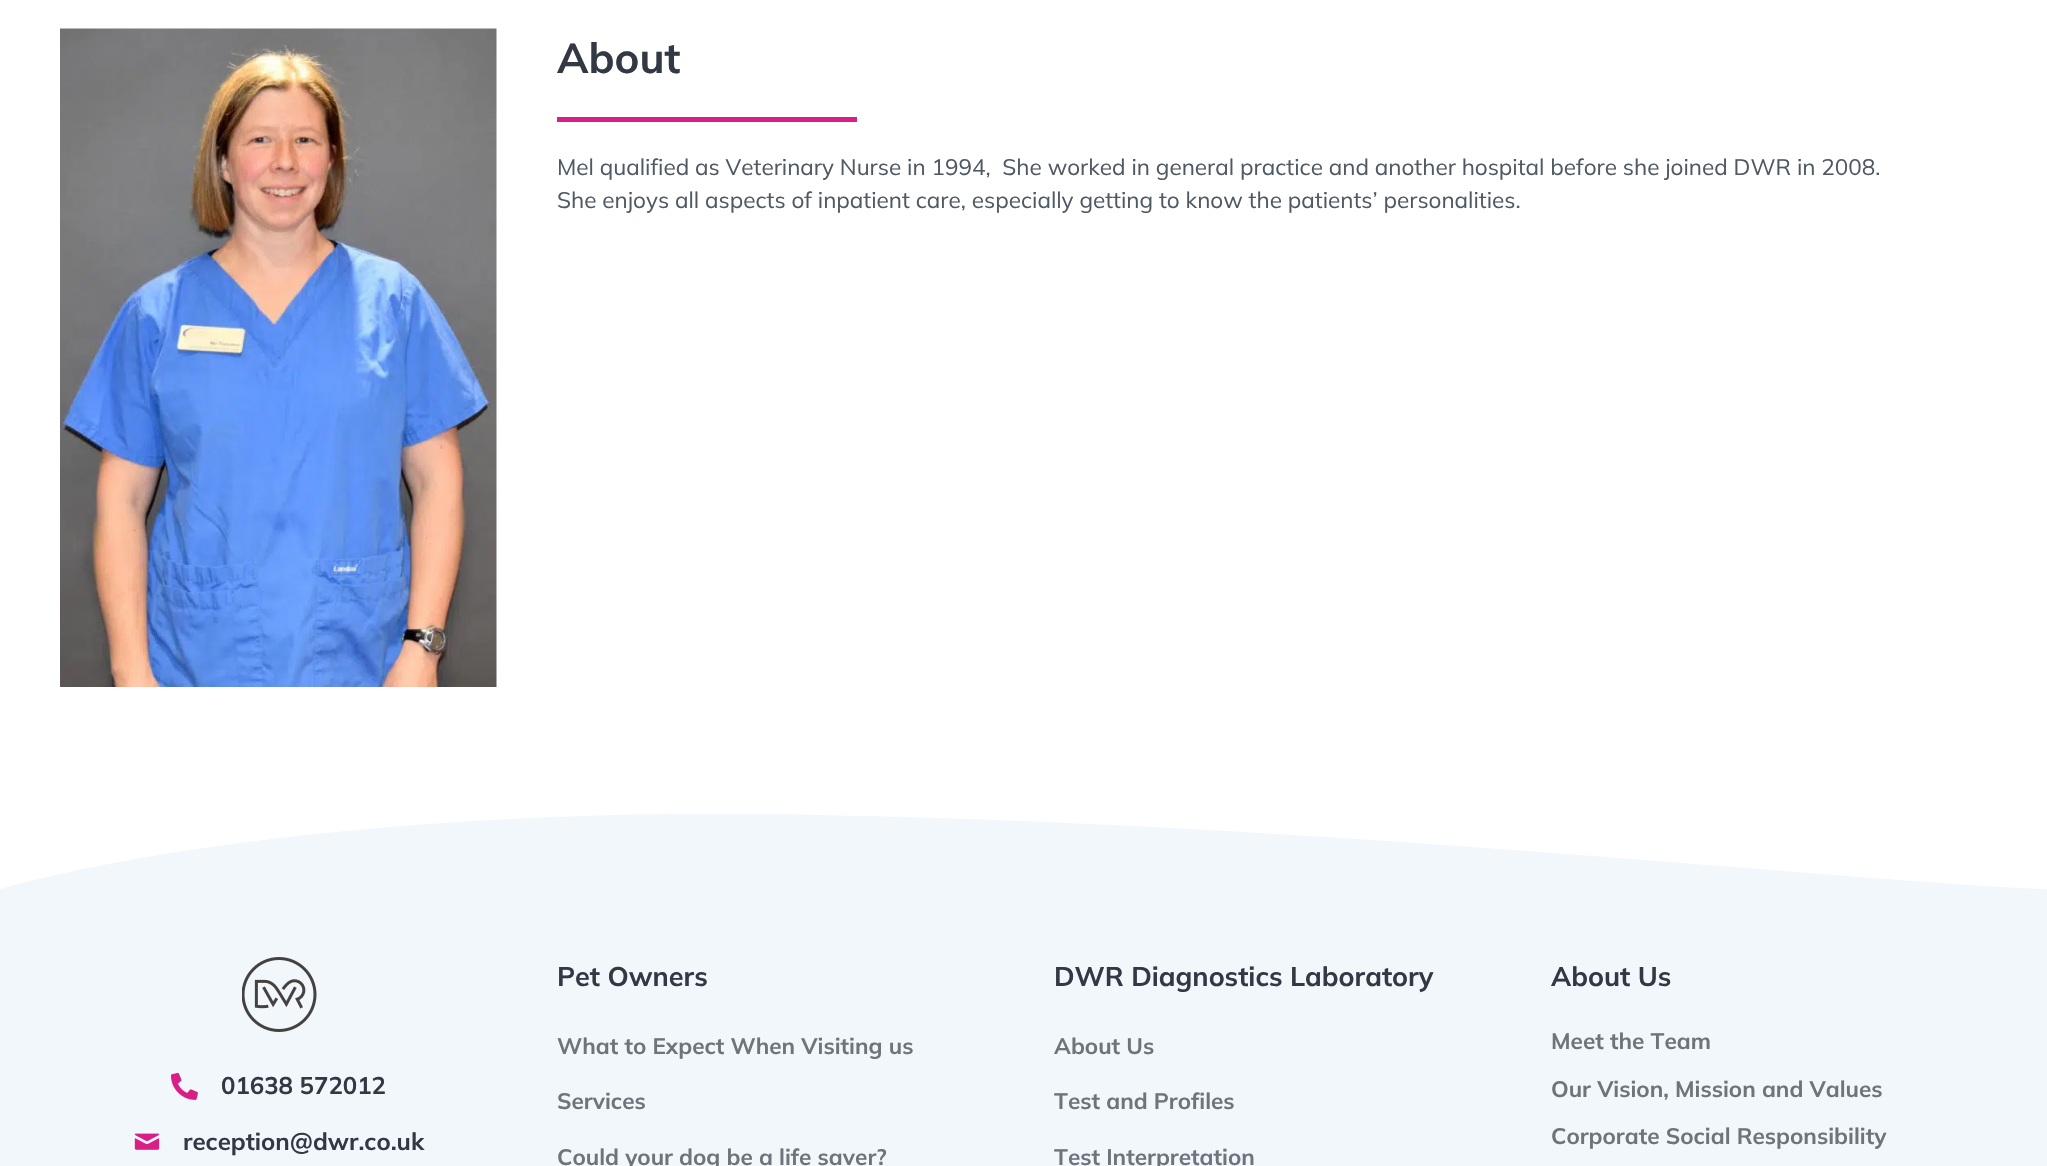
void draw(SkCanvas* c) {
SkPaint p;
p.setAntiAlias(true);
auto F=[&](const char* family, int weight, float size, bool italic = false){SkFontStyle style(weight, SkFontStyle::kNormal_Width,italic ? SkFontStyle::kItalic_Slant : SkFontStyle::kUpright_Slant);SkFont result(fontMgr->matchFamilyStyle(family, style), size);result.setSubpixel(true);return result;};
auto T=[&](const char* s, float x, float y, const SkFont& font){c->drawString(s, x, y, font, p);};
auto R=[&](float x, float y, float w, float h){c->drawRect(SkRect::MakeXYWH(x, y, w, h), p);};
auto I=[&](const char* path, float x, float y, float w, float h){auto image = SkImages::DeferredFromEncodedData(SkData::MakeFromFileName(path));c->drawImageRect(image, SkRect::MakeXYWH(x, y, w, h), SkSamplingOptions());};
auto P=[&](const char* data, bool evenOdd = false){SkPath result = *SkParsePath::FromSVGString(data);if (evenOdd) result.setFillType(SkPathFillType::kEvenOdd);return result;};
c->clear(0xffffffff);
I("1.png",60,28,437,659);
auto f1 = F("Mulish",700,42);
p.setColor(0xff323944);
T("About",557,73,f1);
p.setColor(0xffd71f86);
R(557,117,300,5);
auto f2 = F("Mulish",400,22.5);
p.setColor(0xff4f5963);
T("Mel qualified as Veterinary Nurse in 1994,  She worked in general practice and another hospital before she joined DWR in 2008.",557,175,f2);
T("She enjoys all aspects of inpatient care, especially getting to know the patients’ personalities.",557,208,f2);
p.setColor(0xfff2f7fb);
R(0,814,2047,352);
c->save();
c->clipRect(SkRect::MakeXYWH(0,747,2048,149));
p.setColor(0xffffffff);
c->drawPath(P("M0 889h1c23-7 243-69 666-75h118l30 1c508 9 1029 66 1226 74h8v-143h-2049z"),p);
c->restore();
I("2.png",242,957,75,75);
I("3.png",171,1072,27,28);
auto f3 = F("Mulish",700,24);
p.setColor(0xff323944);
T("01638 572012",221,1094,f3);
I("4.png",134,1133,26,17);
T("reception@dwr.co.uk",183,1150,f3);
auto f4 = F("Mulish",700,27);
T("Pet Owners",557,986,f4);
auto f5 = F("Mulish",700,22.5);
p.setColor(0xff6f747c);
T("What to Expect When Visiting us",557,1054,f5);
T("Services",557,1109,f5);
T("Could your dog be a life saver?",557,1165,f5);
p.setColor(0xff323944);
T("DWR Diagnostics Laboratory",1054,986,f4);
p.setColor(0xff6f747c);
T("About Us",1054,1054,f5);
T("Test and Profiles",1054,1109,f5);
T("Test Interpretation",1054,1165,f5);
p.setColor(0xff323944);
T("About Us",1551,986,f4);
p.setColor(0xff6f747c);
T("Meet the Team",1551,1049,f5);
T("Our Vision, Mission and Values",1551,1097,f5);
T("Corporate Social Responsibility",1551,1144,f5);
}
